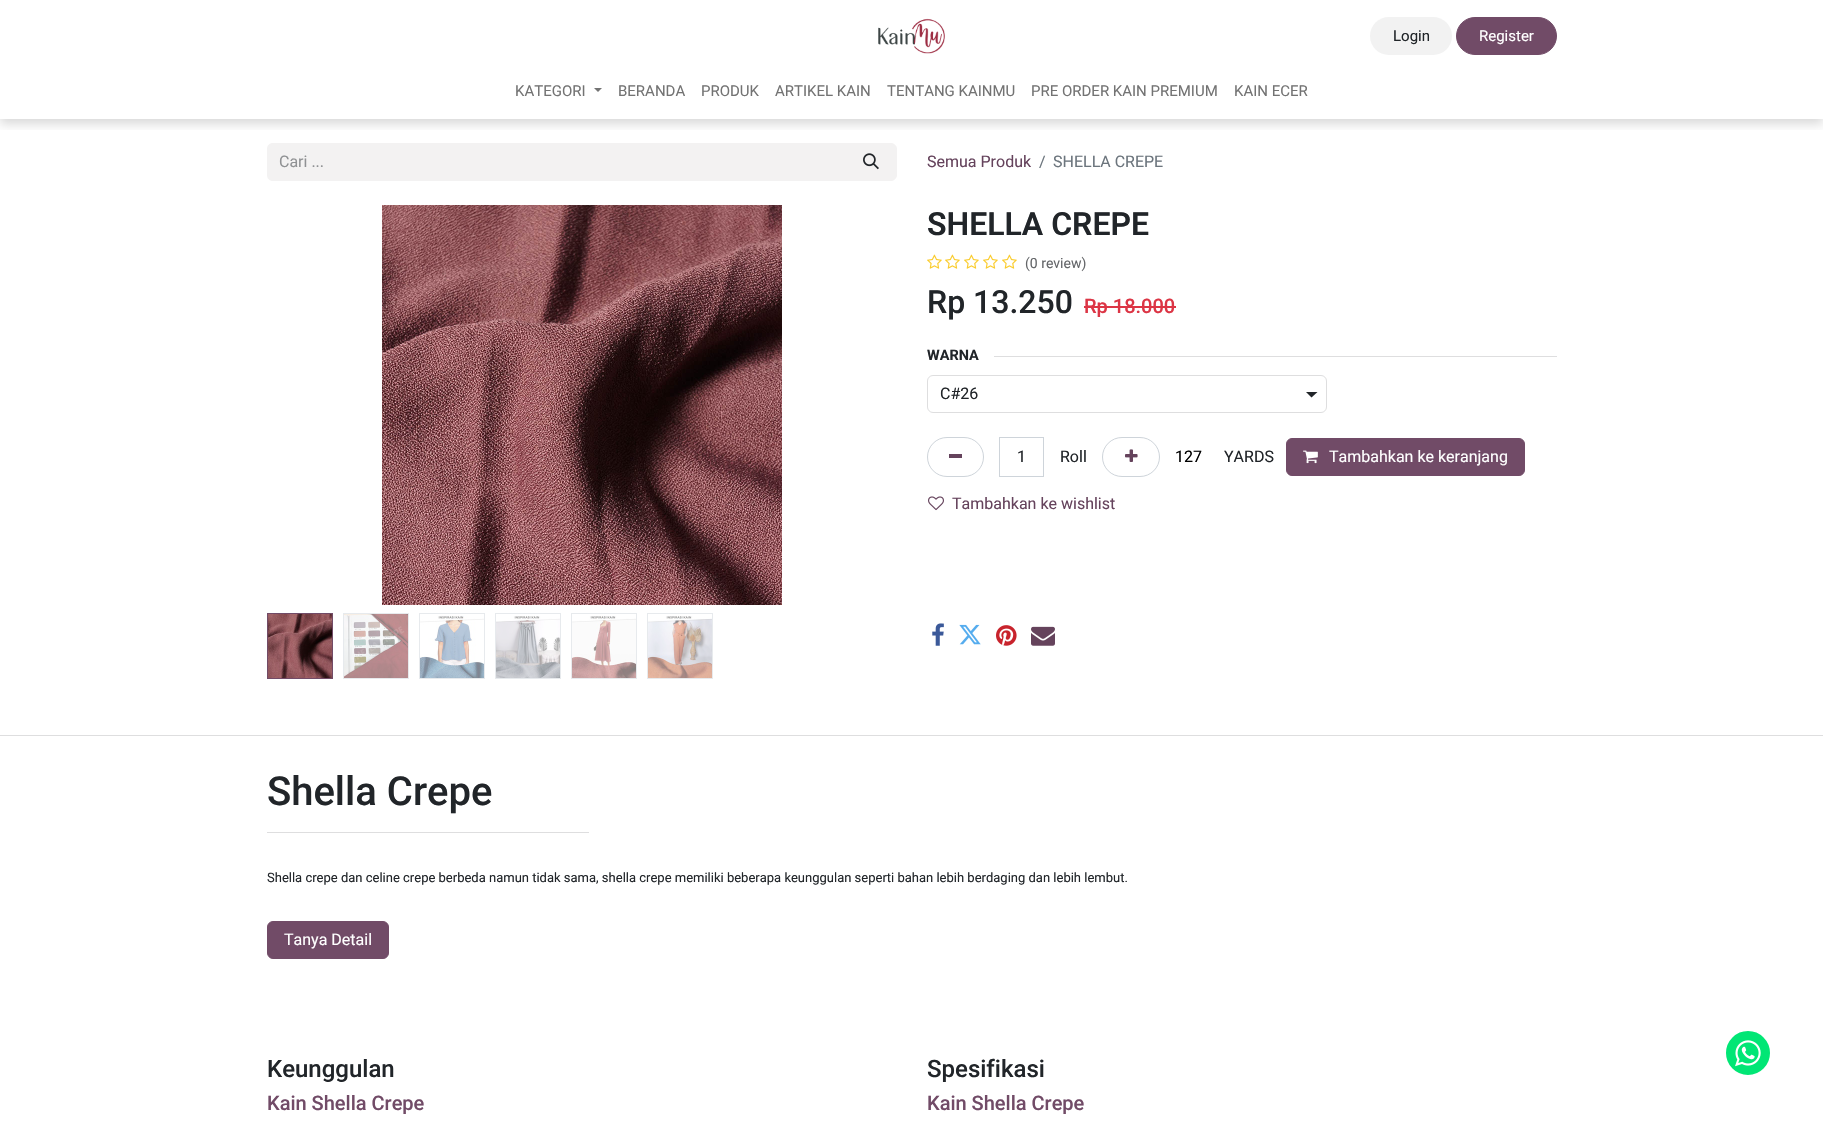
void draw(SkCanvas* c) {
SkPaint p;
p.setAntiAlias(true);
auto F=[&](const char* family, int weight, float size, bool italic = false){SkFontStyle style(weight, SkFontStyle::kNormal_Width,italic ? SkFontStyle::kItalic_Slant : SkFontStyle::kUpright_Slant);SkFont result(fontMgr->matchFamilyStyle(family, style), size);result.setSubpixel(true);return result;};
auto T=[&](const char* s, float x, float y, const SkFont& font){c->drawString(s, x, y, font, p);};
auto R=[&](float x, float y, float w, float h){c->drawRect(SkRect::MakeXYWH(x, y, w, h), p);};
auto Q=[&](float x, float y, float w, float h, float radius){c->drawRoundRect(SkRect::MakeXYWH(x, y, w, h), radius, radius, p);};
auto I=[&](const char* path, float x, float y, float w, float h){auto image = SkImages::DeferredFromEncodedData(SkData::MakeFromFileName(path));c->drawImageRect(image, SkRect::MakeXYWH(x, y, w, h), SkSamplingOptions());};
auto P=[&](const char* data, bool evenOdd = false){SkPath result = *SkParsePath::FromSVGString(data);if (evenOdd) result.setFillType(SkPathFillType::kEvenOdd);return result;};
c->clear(0xffffffff);
c->save();
c->clipRect(SkRect::MakeXYWH(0,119,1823,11));
p.setColor(0x26000000);
p.setMaskFilter(SkMaskFilter::MakeBlur(kNormal_SkBlurStyle, 5));
c->drawRect(SkRect::MakeXYWH(0,5,1823,119),p);
p.setMaskFilter(nullptr);
c->restore();
I("1.png",878,18,67,36);
p.setColor(0xfff2f2f2);
Q(1370,17,82,38,19);
auto f1 = F("Roboto",400,15);
p.setColor(0xff212529);
T("Login",1393,41,f1);
p.setColor(0xff714b67);
c->drawRoundRect(SkRect::MakeXYWH(1456.5,17.5,100,37),18.5,18.5,p);
p.setStroke(true);
p.setStrokeWidth(1);
c->drawRoundRect(SkRect::MakeXYWH(1456.5,17.5,100,37),18.5,18.5,p);
p.setStroke(false);
p.setColor(0xffffffff);
T("Register",1479,41,f1);
p.setColor(0xff737373);
T("KATEGORI",515,96,f1);
c->drawPath(P("M594 88h8l-4 4z"),p);
T("BERANDA",618,96,f1);
T("PRODUK",701,96,f1);
T("ARTIKEL KAIN",775,96,f1);
T("TENTANG KAINMU",887,96,f1);
T("PRE ORDER KAIN PREMIUM",1031,96,f1);
T("KAIN ECER",1234,96,f1);
p.setColor(0xfff3f2f2);
c->drawPath(P("M273 143h574v38h-574c-3.5 0-6-2.5-6-6v-26c0-3.5 2.5-6 6-6z"),p);
auto f2 = F("Roboto",400,16);
p.setColor(0xff909294);
T("Cari ...",279,167,f2);
p.setColor(0xfff3f2f2);
c->drawPath(P("M846.5 143.5h44.5c3 0 5.5 2.5 5.5 5.5v26c0 3-2.5 5.5-5.5 5.5h-44.5z"),p);
p.setStroke(true);
c->drawPath(P("M846.5 143.5h44.5c3 0 5.5 2.5 5.5 5.5v26c0 3-2.5 5.5-5.5 5.5h-44.5z"),p);
I("2.png",863,153,16,17);
p.setStroke(false);
p.setColor(0xff65435c);
T("Semua Produk",927,167,f2);
p.setColor(0xff6c757d);
T("/",1039,167,f2);
T("SHELLA CREPE",1053,167,f2);
I("3.png",382,205,400,400);
p.setStroke(true);
p.setColor(0xff714b67);
c->drawRect(SkRect::MakeXYWH(267.5,613.5,65,65),p);
I("4.png",268,614,64,64);
p.setColor(0xffe7eaed);
c->drawRect(SkRect::MakeXYWH(343.5,613.5,65,65),p);
I("5.png",344,614,64,64);
c->drawRect(SkRect::MakeXYWH(419.5,613.5,65,65),p);
I("6.png",420,615,64,63);
c->drawRect(SkRect::MakeXYWH(495.5,613.5,65,65),p);
I("7.png",496,616,64,62);
c->drawRect(SkRect::MakeXYWH(571.5,613.5,65,65),p);
I("8.png",572,616,64,62);
c->drawRect(SkRect::MakeXYWH(647.5,613.5,65,65),p);
I("9.png",648,616,64,62);
auto f3 = F("Roboto",600,32);
p.setStroke(false);
p.setColor(0xff212529);
T("SHELLA CREPE",927,235,f3);
I("10.png",927,254,15,15);
I("10.png",945,254,15,15);
I("10.png",964,254,15,15);
I("10.png",983,254,15,15);
I("10.png",1002,254,15,15);
auto f4 = F("Roboto",400,14);
p.setColor(0xff646669);
T("(0 review)",1025,268,f4);
auto f5 = F("Roboto",500,32);
p.setColor(0xff212529);
T("Rp 13.250",927,313,f5);
auto f6 = F("Roboto",500,20);
p.setColor(0xffdc3545);
T("Rp 18.000",1084,313,f6);
R(1084,306,92,2);
auto f7 = F("Roboto",700,14.5);
p.setColor(0xff212529);
T("WARNA",927,360,f7);
p.setColor(0xffdededf);
R(994,356,563,1);
p.setColor(0xff212529);
c->drawPath(P("M1306 392h11.5l-6 5.5z"),p);
p.setStroke(true);
p.setColor(0xffdededf);
c->drawRoundRect(SkRect::MakeXYWH(927.5,375.5,399,37),5.5,5.5,p);
p.setStroke(false);
p.setColor(0xff212529);
T("C#26",940,399,f2);
p.setStroke(true);
p.setColor(0xffced4da);
c->drawRoundRect(SkRect::MakeXYWH(927.5,437.5,56,39),19.5,19.5,p);
p.setStroke(false);
p.setColor(0xff65435c);
R(949,454,13,4);
p.setStroke(true);
p.setColor(0xffced4da);
c->drawRect(SkRect::MakeXYWH(999.5,437.5,44,39),p);
p.setStroke(false);
p.setColor(0xff212529);
T("1",1017,462,f2);
T("Roll",1060,462,f2);
p.setStroke(true);
p.setColor(0xffced4da);
c->drawRoundRect(SkRect::MakeXYWH(1102.5,437.5,57,39),19.5,19.5,p);
I("11.png",1125,449,13,13);
p.setStroke(false);
p.setColor(0xff000000);
T("127",1175,462,f2);
p.setColor(0xff212529);
T("YARDS",1224,462,f2);
p.setColor(0xff714b67);
c->drawRoundRect(SkRect::MakeXYWH(1286.5,438.5,238,37),5.5,5.5,p);
p.setStroke(true);
c->drawRoundRect(SkRect::MakeXYWH(1286.5,438.5,238,37),5.5,5.5,p);
I("12.png",1303,450,15,14);
p.setStroke(false);
p.setColor(0xffffffff);
T("Tambahkan ke keranjang",1329,462,f2);
I("13.png",928,496,16,15);
p.setColor(0xff65435c);
T("Tambahkan ke wishlist",952,509,f2);
I("14.png",932,623,12,23);
I("15.png",959,624,22,21);
I("16.png",996,625,21,21);
I("17.png",1031,626,24,20);
p.setColor(0xffdededf);
R(0,735,1823,1);
auto f8 = F("Roboto",500,40);
p.setColor(0xff212529);
T("Shella Crepe",267,805,f8);
p.setColor(0xffdededf);
R(267,832,322,1);
auto f9 = F("Roboto",400,13);
p.setColor(0xff212529);
T("Shella crepe dan celine crepe berbeda namun tidak sama, shella crepe memiliki beberapa keunggulan seperti bahan lebih berdaging dan lebih lembut.",267,882,f9);
p.setColor(0xff714b67);
c->drawRoundRect(SkRect::MakeXYWH(267.5,921.5,121,37),5.5,5.5,p);
p.setStroke(true);
c->drawRoundRect(SkRect::MakeXYWH(267.5,921.5,121,37),5.5,5.5,p);
p.setStroke(false);
p.setColor(0xffffffff);
T("Tanya Detail",284,945,f2);
auto f10 = F("Roboto",500,24);
p.setColor(0xff212529);
T("Keunggulan",267,1077,f10);
p.setColor(0xff714b67);
T("Kain Shella Crepe",267,1110,f6);
p.setColor(0xff212529);
T("Spesifikasi",927,1077,f10);
p.setColor(0xff714b67);
T("Kain Shella Crepe",927,1110,f6);
p.setColor(0xff01e675);
c->drawCircle(1748,1053,23.5,p);
p.setStroke(true);
p.setStrokeWidth(3);
p.setColor(0xffffffff);
c->drawCircle(1748,1053,23.5,p);
I("18.png",1735,1040,26,27);
}
